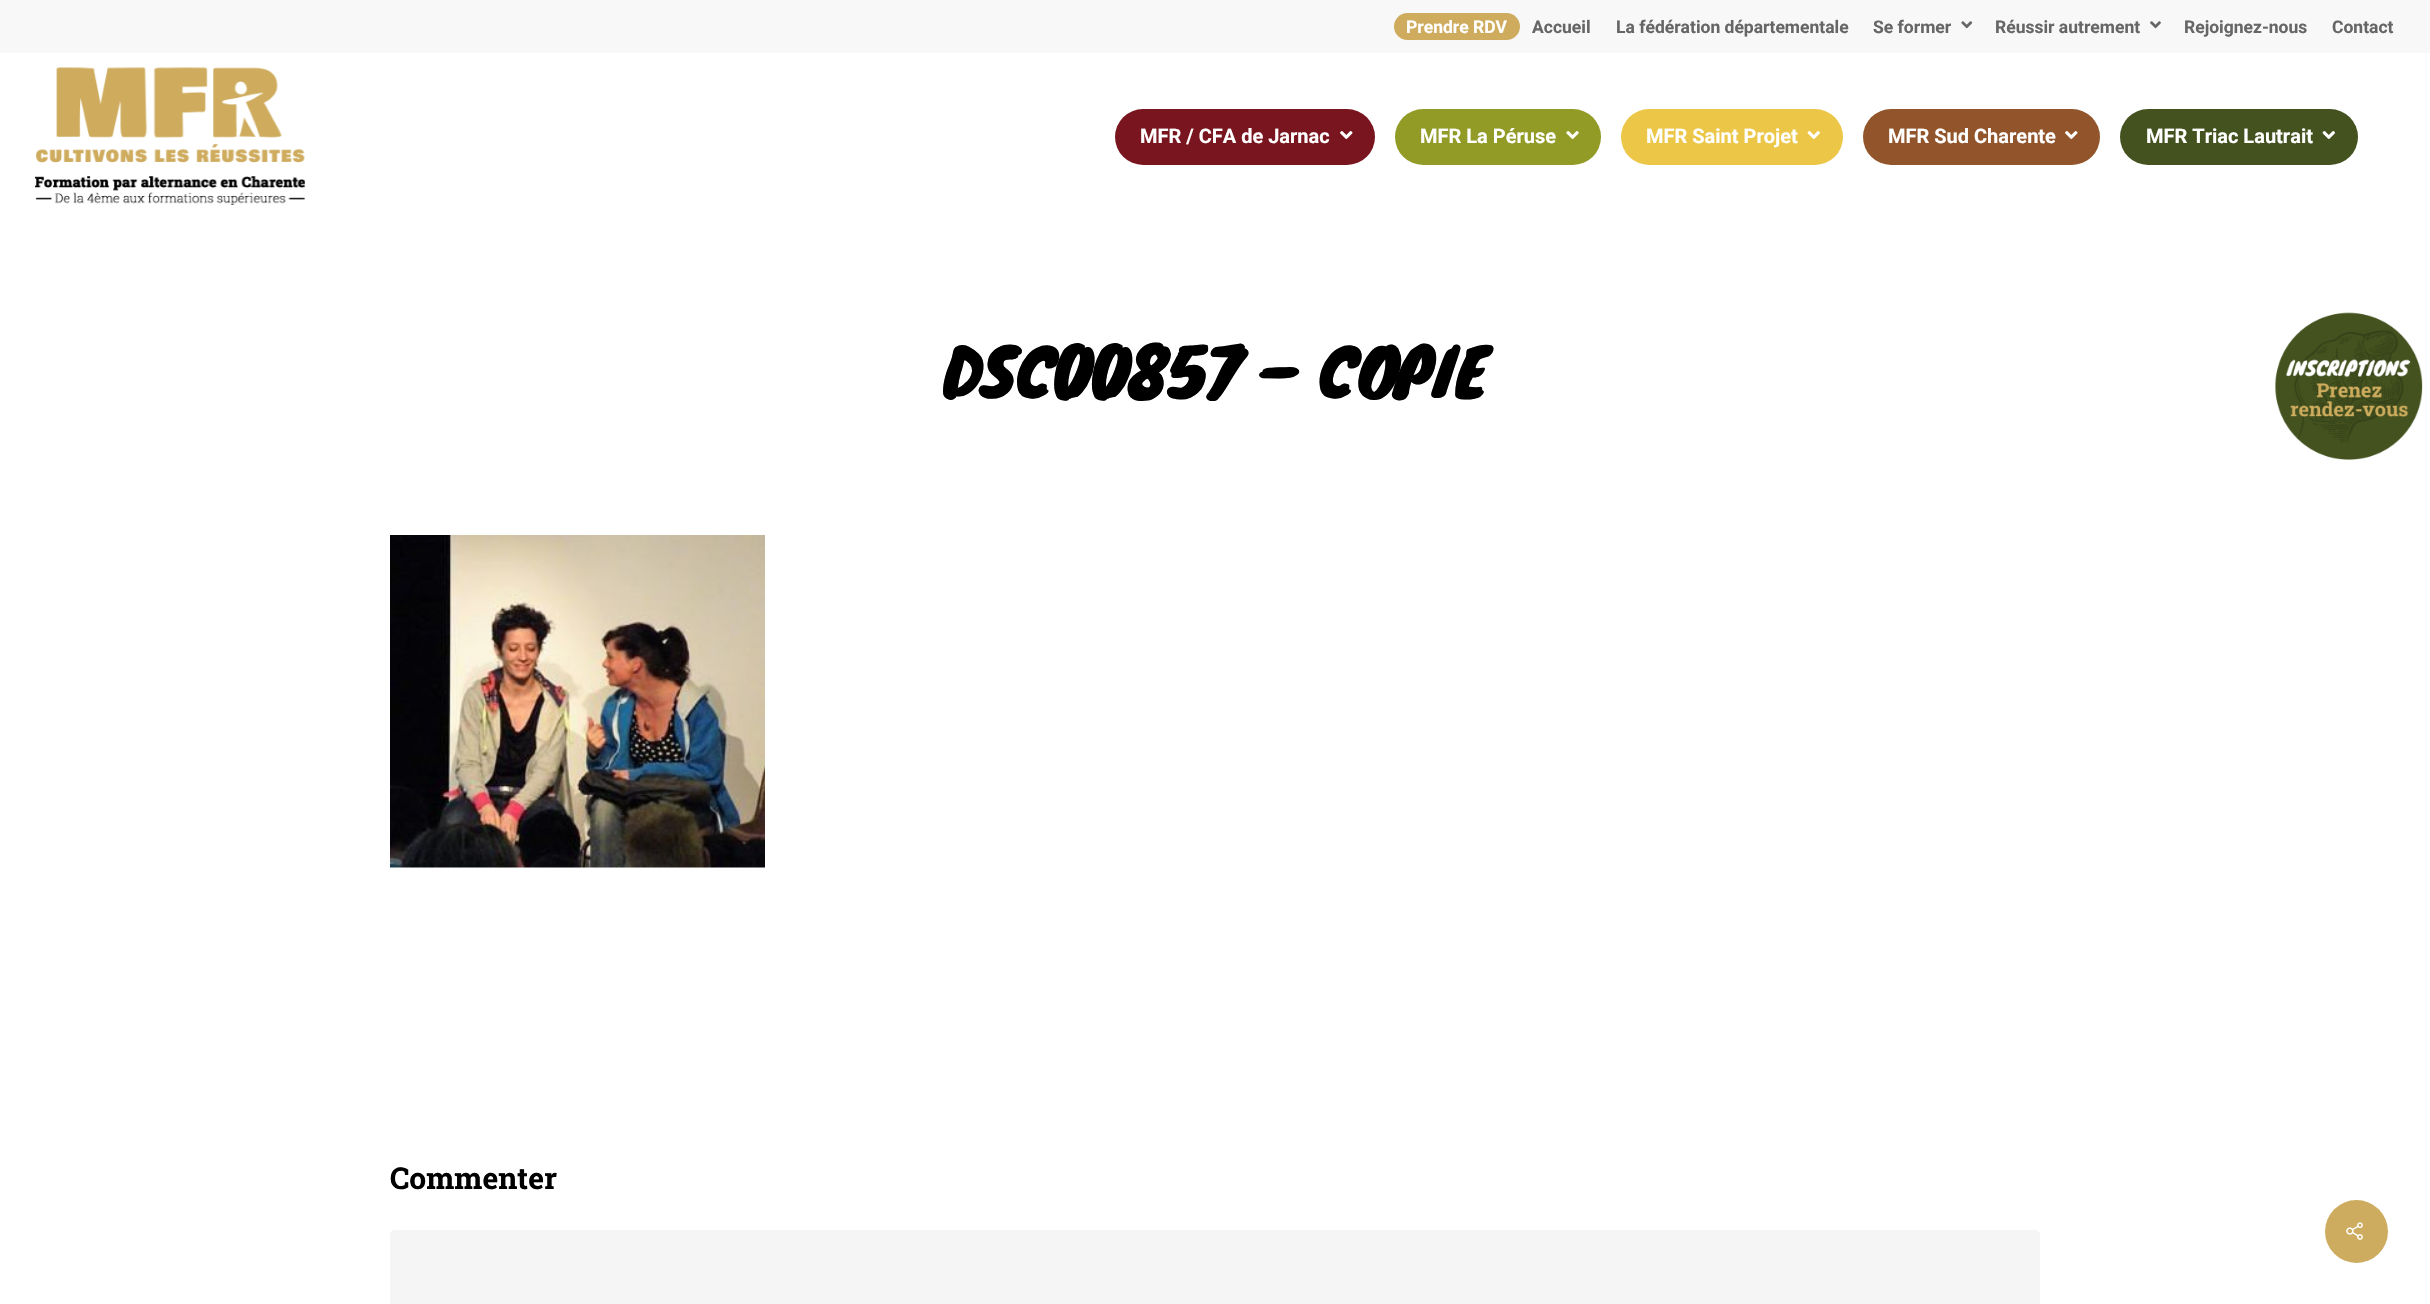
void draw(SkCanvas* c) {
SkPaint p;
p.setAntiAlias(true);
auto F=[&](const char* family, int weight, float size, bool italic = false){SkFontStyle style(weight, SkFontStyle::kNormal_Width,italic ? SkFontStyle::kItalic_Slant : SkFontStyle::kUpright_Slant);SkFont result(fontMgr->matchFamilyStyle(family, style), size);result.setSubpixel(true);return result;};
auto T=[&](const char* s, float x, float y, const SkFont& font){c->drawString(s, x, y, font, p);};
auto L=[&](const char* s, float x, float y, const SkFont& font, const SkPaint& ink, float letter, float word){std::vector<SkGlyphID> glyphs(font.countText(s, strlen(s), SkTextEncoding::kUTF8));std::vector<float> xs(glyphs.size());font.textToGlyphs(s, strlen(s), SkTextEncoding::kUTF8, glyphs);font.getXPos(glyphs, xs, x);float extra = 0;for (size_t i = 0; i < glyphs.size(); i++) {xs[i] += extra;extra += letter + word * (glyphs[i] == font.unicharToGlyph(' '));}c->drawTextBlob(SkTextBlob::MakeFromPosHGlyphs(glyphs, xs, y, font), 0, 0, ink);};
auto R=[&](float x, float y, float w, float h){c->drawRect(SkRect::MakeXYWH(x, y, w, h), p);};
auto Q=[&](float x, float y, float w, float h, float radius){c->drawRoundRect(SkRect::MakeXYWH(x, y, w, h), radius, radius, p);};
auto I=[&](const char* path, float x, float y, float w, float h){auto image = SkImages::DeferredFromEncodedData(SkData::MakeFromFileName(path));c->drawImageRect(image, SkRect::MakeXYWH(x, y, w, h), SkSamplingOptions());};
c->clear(0xffffffff);
p.setColor(0xfff8f8f8);
R(0,0,2430,53);
p.setColor(0xffceab5d);
Q(1394,13,126,27,13.5);
auto f1 = F("Roboto",700,17.5);
p.setColor(0xffffffff);
T("Prendre RDV",1406,33,f1);
p.setColor(0xff666666);
T("Accueil",1532,33,f1);
T("La fédération départementale",1616,33,f1);
T("Se former",1873,33,f1);
I("1.png",1961,21,12,8);
T("Réussir autrement",1995,33,f1);
I("2.png",2150,21,11,8);
T("Rejoignez-nous",2184,33,f1);
T("Contact",2332,33,f1);
I("3.png",35,67,270,138);
p.setColor(0xff78151e);
Q(1115,109,260,56,28);
auto f2 = F("Roboto",700,20);
p.setColor(0xffffffff);
T("MFR / CFA de Jarnac",1140,143,f2);
I("4.png",1340,131,13,8);
p.setColor(0xff919b25);
Q(1395,109,206,56,28);
p.setColor(0xffffffff);
T("MFR La Péruse",1420,143,f2);
I("5.png",1566,131,13,8);
p.setColor(0xffecc747);
Q(1621,109,222,56,28);
p.setColor(0xffffffff);
T("MFR Saint Projet",1646,143,f2);
I("6.png",1807,131,13,8);
p.setColor(0xff92552b);
Q(1863,109,237,56,28);
p.setColor(0xffffffff);
T("MFR Sud Charente",1888,143,f2);
I("7.png",2065,131,13,8);
p.setColor(0xff44521f);
Q(2120,109,238,56,28);
p.setColor(0xffffffff);
T("MFR Triac Lautrait",2146,143,f2);
I("8.png",2322,131,13,8);
auto f3 = F("Knewave",400,65);
p.setColor(0xff000000);
L("DSC00857 – COPIE",943,395,f3,p,-1.25,0);
I("9.png",390,535,375,333);
auto f4 = F("Roboto Slab",700,30);
T("Commenter",390,1189,f4);
p.setColor(0xfff5f5f5);
Q(390,1230,1650,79,5);
p.setColor(0xffceac5f);
c->drawCircle(2356.5,1231.5,31.5,p);
I("10.png",2346,1222,17,18);
I("11.png",2275,312,148,148);
}
